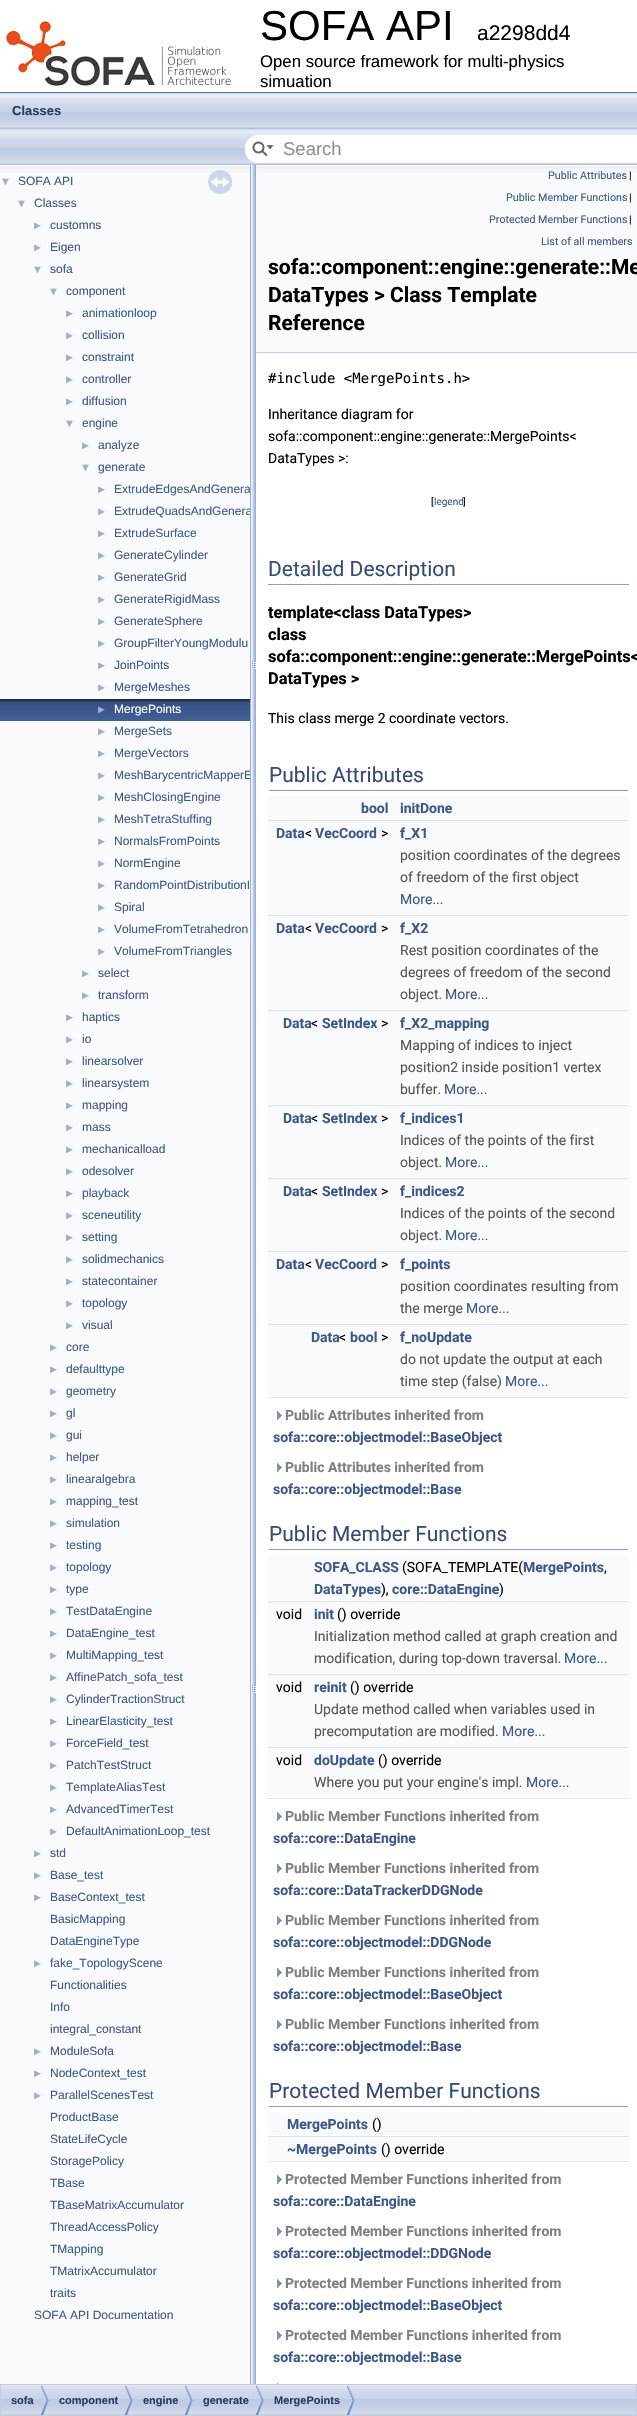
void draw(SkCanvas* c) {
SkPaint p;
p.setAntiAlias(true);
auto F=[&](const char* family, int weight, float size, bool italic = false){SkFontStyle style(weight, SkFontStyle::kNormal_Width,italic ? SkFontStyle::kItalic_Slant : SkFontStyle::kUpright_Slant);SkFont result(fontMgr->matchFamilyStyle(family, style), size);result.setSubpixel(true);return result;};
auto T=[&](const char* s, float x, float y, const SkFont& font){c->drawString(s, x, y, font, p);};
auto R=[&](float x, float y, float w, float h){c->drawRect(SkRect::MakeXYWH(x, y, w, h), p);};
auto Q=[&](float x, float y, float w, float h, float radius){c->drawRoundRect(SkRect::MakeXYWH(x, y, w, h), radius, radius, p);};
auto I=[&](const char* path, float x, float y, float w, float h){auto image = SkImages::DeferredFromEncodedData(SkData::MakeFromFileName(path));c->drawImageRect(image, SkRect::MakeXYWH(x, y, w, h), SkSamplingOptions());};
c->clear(0xffffffff);
p.setColor(0xff5373b4);
R(0,92,637,1);
I("1.png",6,21,225,65);
auto f1 = F("Liberation Sans",400,42);
p.setColor(0xff000000);
T("SOFA API",260,40,f1);
auto f2 = F("Liberation Sans",400,21);
T("a2298dd4",477,40,f2);
auto f3 = F("Liberation Sans",400,16.75);
T("Open source framework for multi-physics",260,67,f3);
T("simuation",260,87,f3);
I("2.png",0,93,637,72);
auto f4 = F("Liberation Sans",700,13);
p.setColor(0xff283a5d);
T("Classes",12,115,f4);
p.setColor(0xffffffff);
Q(245,135,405,28,13);
I("3.png",252,141,22,15);
auto f5 = F("Liberation Sans",400,18.5);
p.setColor(0xff909090);
T("Search",283,155,f5);
p.setColor(0xfff9fafc);
R(0,173,250,2211);
I("4.png",0,165,250,8);
I("5.png",208,170,24,24);
auto f6 = F("Liberation Sans",400,11);
p.setColor(0xff9cafd4);
T("▼",0,185,f6);
auto f7 = F("Liberation Sans",400,12);
p.setColor(0xff3d578c);
T("SOFA API",18,185,f7);
p.setColor(0xff9cafd4);
T("▼",16,207,f6);
p.setColor(0xff3d578c);
T("Classes",34,207,f7);
p.setColor(0xff9cafd4);
T("►",32,229,f6);
p.setColor(0xff3d578c);
T("customns",50,229,f7);
p.setColor(0xff9cafd4);
T("►",32,251,f6);
p.setColor(0xff3d578c);
T("Eigen",50,251,f7);
p.setColor(0xff9cafd4);
T("▼",32,273,f6);
p.setColor(0xff3d578c);
T("sofa",50,273,f7);
p.setColor(0xff9cafd4);
T("▼",48,295,f6);
p.setColor(0xff3d578c);
T("component",66,295,f7);
p.setColor(0xff9cafd4);
T("►",64,317,f6);
p.setColor(0xff3d578c);
T("animationloop",82,317,f7);
p.setColor(0xff9cafd4);
T("►",64,339,f6);
p.setColor(0xff3d578c);
T("collision",82,339,f7);
p.setColor(0xff9cafd4);
T("►",64,361,f6);
p.setColor(0xff3d578c);
T("constraint",82,361,f7);
p.setColor(0xff9cafd4);
T("►",64,383,f6);
p.setColor(0xff3d578c);
T("controller",82,383,f7);
p.setColor(0xff9cafd4);
T("►",64,405,f6);
p.setColor(0xff3d578c);
T("diffusion",82,405,f7);
p.setColor(0xff9cafd4);
T("▼",64,427,f6);
p.setColor(0xff3d578c);
T("engine",82,427,f7);
p.setColor(0xff9cafd4);
T("►",80,449,f6);
p.setColor(0xff3d578c);
T("analyze",98,449,f7);
p.setColor(0xff9cafd4);
T("▼",80,471,f6);
p.setColor(0xff3d578c);
T("generate",98,471,f7);
p.setColor(0xff9cafd4);
T("►",96,493,f6);
p.setColor(0xff3d578c);
T("ExtrudeEdgesAndGenera",114,493,f7);
p.setColor(0xff9cafd4);
T("►",96,515,f6);
p.setColor(0xff3d578c);
T("ExtrudeQuadsAndGenera",114,515,f7);
p.setColor(0xff9cafd4);
T("►",96,537,f6);
p.setColor(0xff3d578c);
T("ExtrudeSurface",114,537,f7);
p.setColor(0xff9cafd4);
T("►",96,559,f6);
p.setColor(0xff3d578c);
T("GenerateCylinder",114,559,f7);
p.setColor(0xff9cafd4);
T("►",96,581,f6);
p.setColor(0xff3d578c);
T("GenerateGrid",114,581,f7);
p.setColor(0xff9cafd4);
T("►",96,603,f6);
p.setColor(0xff3d578c);
T("GenerateRigidMass",114,603,f7);
p.setColor(0xff9cafd4);
T("►",96,625,f6);
p.setColor(0xff3d578c);
T("GenerateSphere",114,625,f7);
p.setColor(0xff9cafd4);
T("►",96,647,f6);
p.setColor(0xff3d578c);
T("GroupFilterYoungModulu",114,647,f7);
p.setColor(0xff9cafd4);
T("►",96,669,f6);
p.setColor(0xff3d578c);
T("JoinPoints",114,669,f7);
p.setColor(0xff9cafd4);
T("►",96,691,f6);
p.setColor(0xff3d578c);
T("MergeMeshes",114,691,f7);
I("6.png",0,699,250,22);
p.setColor(0xff9cafd4);
T("►",96,713,f6);
p.setColor(0xffffffff);
T("MergePoints",114,713,f7);
p.setColor(0xff9cafd4);
T("►",96,735,f6);
p.setColor(0xff3d578c);
T("MergeSets",114,735,f7);
p.setColor(0xff9cafd4);
T("►",96,757,f6);
p.setColor(0xff3d578c);
T("MergeVectors",114,757,f7);
p.setColor(0xff9cafd4);
T("►",96,779,f6);
p.setColor(0xff3d578c);
T("MeshBarycentricMapperE",114,779,f7);
p.setColor(0xff9cafd4);
T("►",96,801,f6);
p.setColor(0xff3d578c);
T("MeshClosingEngine",114,801,f7);
p.setColor(0xff9cafd4);
T("►",96,823,f6);
p.setColor(0xff3d578c);
T("MeshTetraStuffing",114,823,f7);
p.setColor(0xff9cafd4);
T("►",96,845,f6);
p.setColor(0xff3d578c);
T("NormalsFromPoints",114,845,f7);
p.setColor(0xff9cafd4);
T("►",96,867,f6);
p.setColor(0xff3d578c);
T("NormEngine",114,867,f7);
p.setColor(0xff9cafd4);
T("►",96,889,f6);
p.setColor(0xff3d578c);
T("RandomPointDistributionI",114,889,f7);
p.setColor(0xff9cafd4);
T("►",96,911,f6);
p.setColor(0xff3d578c);
T("Spiral",114,911,f7);
p.setColor(0xff9cafd4);
T("►",96,933,f6);
p.setColor(0xff3d578c);
T("VolumeFromTetrahedron",114,933,f7);
p.setColor(0xff9cafd4);
T("►",96,955,f6);
p.setColor(0xff3d578c);
T("VolumeFromTriangles",114,955,f7);
p.setColor(0xff9cafd4);
T("►",80,977,f6);
p.setColor(0xff3d578c);
T("select",98,977,f7);
p.setColor(0xff9cafd4);
T("►",80,999,f6);
p.setColor(0xff3d578c);
T("transform",98,999,f7);
p.setColor(0xff9cafd4);
T("►",64,1021,f6);
p.setColor(0xff3d578c);
T("haptics",82,1021,f7);
p.setColor(0xff9cafd4);
T("►",64,1043,f6);
p.setColor(0xff3d578c);
T("io",82,1043,f7);
p.setColor(0xff9cafd4);
T("►",64,1065,f6);
p.setColor(0xff3d578c);
T("linearsolver",82,1065,f7);
p.setColor(0xff9cafd4);
T("►",64,1087,f6);
p.setColor(0xff3d578c);
T("linearsystem",82,1087,f7);
p.setColor(0xff9cafd4);
T("►",64,1109,f6);
p.setColor(0xff3d578c);
T("mapping",82,1109,f7);
p.setColor(0xff9cafd4);
T("►",64,1131,f6);
p.setColor(0xff3d578c);
T("mass",82,1131,f7);
p.setColor(0xff9cafd4);
T("►",64,1153,f6);
p.setColor(0xff3d578c);
T("mechanicalload",82,1153,f7);
p.setColor(0xff9cafd4);
T("►",64,1175,f6);
p.setColor(0xff3d578c);
T("odesolver",82,1175,f7);
p.setColor(0xff9cafd4);
T("►",64,1197,f6);
p.setColor(0xff3d578c);
T("playback",82,1197,f7);
p.setColor(0xff9cafd4);
T("►",64,1219,f6);
p.setColor(0xff3d578c);
T("sceneutility",82,1219,f7);
p.setColor(0xff9cafd4);
T("►",64,1241,f6);
p.setColor(0xff3d578c);
T("setting",82,1241,f7);
p.setColor(0xff9cafd4);
T("►",64,1263,f6);
p.setColor(0xff3d578c);
T("solidmechanics",82,1263,f7);
p.setColor(0xff9cafd4);
T("►",64,1285,f6);
p.setColor(0xff3d578c);
T("statecontainer",82,1285,f7);
p.setColor(0xff9cafd4);
T("►",64,1307,f6);
p.setColor(0xff3d578c);
T("topology",82,1307,f7);
p.setColor(0xff9cafd4);
T("►",64,1329,f6);
p.setColor(0xff3d578c);
T("visual",82,1329,f7);
p.setColor(0xff9cafd4);
T("►",48,1351,f6);
p.setColor(0xff3d578c);
T("core",66,1351,f7);
p.setColor(0xff9cafd4);
T("►",48,1373,f6);
p.setColor(0xff3d578c);
T("defaulttype",66,1373,f7);
p.setColor(0xff9cafd4);
T("►",48,1395,f6);
p.setColor(0xff3d578c);
T("geometry",66,1395,f7);
p.setColor(0xff9cafd4);
T("►",48,1417,f6);
p.setColor(0xff3d578c);
T("gl",66,1417,f7);
p.setColor(0xff9cafd4);
T("►",48,1439,f6);
p.setColor(0xff3d578c);
T("gui",66,1439,f7);
p.setColor(0xff9cafd4);
T("►",48,1461,f6);
p.setColor(0xff3d578c);
T("helper",66,1461,f7);
p.setColor(0xff9cafd4);
T("►",48,1483,f6);
p.setColor(0xff3d578c);
T("linearalgebra",66,1483,f7);
p.setColor(0xff9cafd4);
T("►",48,1505,f6);
p.setColor(0xff3d578c);
T("mapping_test",66,1505,f7);
p.setColor(0xff9cafd4);
T("►",48,1527,f6);
p.setColor(0xff3d578c);
T("simulation",66,1527,f7);
p.setColor(0xff9cafd4);
T("►",48,1549,f6);
p.setColor(0xff3d578c);
T("testing",66,1549,f7);
p.setColor(0xff9cafd4);
T("►",48,1571,f6);
p.setColor(0xff3d578c);
T("topology",66,1571,f7);
p.setColor(0xff9cafd4);
T("►",48,1593,f6);
p.setColor(0xff3d578c);
T("type",66,1593,f7);
p.setColor(0xff9cafd4);
T("►",48,1615,f6);
p.setColor(0xff3d578c);
T("TestDataEngine",66,1615,f7);
p.setColor(0xff9cafd4);
T("►",48,1637,f6);
p.setColor(0xff3d578c);
T("DataEngine_test",66,1637,f7);
p.setColor(0xff9cafd4);
T("►",48,1659,f6);
p.setColor(0xff3d578c);
T("MultiMapping_test",66,1659,f7);
p.setColor(0xff9cafd4);
T("►",48,1681,f6);
p.setColor(0xff3d578c);
T("AffinePatch_sofa_test",66,1681,f7);
p.setColor(0xff9cafd4);
T("►",48,1703,f6);
p.setColor(0xff3d578c);
T("CylinderTractionStruct",66,1703,f7);
p.setColor(0xff9cafd4);
T("►",48,1725,f6);
p.setColor(0xff3d578c);
T("LinearElasticity_test",66,1725,f7);
p.setColor(0xff9cafd4);
T("►",48,1747,f6);
p.setColor(0xff3d578c);
T("ForceField_test",66,1747,f7);
p.setColor(0xff9cafd4);
T("►",48,1769,f6);
p.setColor(0xff3d578c);
T("PatchTestStruct",66,1769,f7);
p.setColor(0xff9cafd4);
T("►",48,1791,f6);
p.setColor(0xff3d578c);
T("TemplateAliasTest",66,1791,f7);
p.setColor(0xff9cafd4);
T("►",48,1813,f6);
p.setColor(0xff3d578c);
T("AdvancedTimerTest",66,1813,f7);
p.setColor(0xff9cafd4);
T("►",48,1835,f6);
p.setColor(0xff3d578c);
T("DefaultAnimationLoop_test",66,1835,f7);
p.setColor(0xff9cafd4);
T("►",32,1857,f6);
p.setColor(0xff3d578c);
T("std",50,1857,f7);
p.setColor(0xff9cafd4);
T("►",32,1879,f6);
p.setColor(0xff3d578c);
T("Base_test",50,1879,f7);
p.setColor(0xff9cafd4);
T("►",32,1901,f6);
p.setColor(0xff3d578c);
T("BaseContext_test",50,1901,f7);
T("BasicMapping",50,1923,f7);
T("DataEngineType",50,1945,f7);
p.setColor(0xff9cafd4);
T("►",32,1967,f6);
p.setColor(0xff3d578c);
T("fake_TopologyScene",50,1967,f7);
T("Functionalities",50,1989,f7);
T("Info",50,2011,f7);
T("integral_constant",50,2033,f7);
p.setColor(0xff9cafd4);
T("►",32,2055,f6);
p.setColor(0xff3d578c);
T("ModuleSofa",50,2055,f7);
p.setColor(0xff9cafd4);
T("►",32,2077,f6);
p.setColor(0xff3d578c);
T("NodeContext_test",50,2077,f7);
p.setColor(0xff9cafd4);
T("►",32,2099,f6);
p.setColor(0xff3d578c);
T("ParallelScenesTest",50,2099,f7);
T("ProductBase",50,2121,f7);
T("StateLifeCycle",50,2143,f7);
T("StoragePolicy",50,2165,f7);
T("TBase",50,2187,f7);
T("TBaseMatrixAccumulator",50,2209,f7);
T("ThreadAccessPolicy",50,2231,f7);
T("TMapping",50,2253,f7);
T("TMatrixAccumulator",50,2275,f7);
T("traits",50,2297,f7);
T("SOFA API Documentation",34,2319,f7);
I("7.png",250,165,6,2219);
p.setColor(0xfff9fafc);
R(256,173,381,179);
I("8.png",256,165,381,8);
p.setColor(0xffc4cfe5);
R(256,352,381,1);
auto f8 = F("Roboto",400,10.7);
p.setColor(0xff3d578c);
T("Public Attributes",548,179,f8);
p.setColor(0xff000000);
T("|",629,179,f8);
p.setColor(0xff3d578c);
T("Public Member Functions",506,201,f8);
p.setColor(0xff000000);
T("|",629,201,f8);
p.setColor(0xff3d578c);
T("Protected Member Functions",489,223,f8);
p.setColor(0xff000000);
T("|",629,223,f8);
p.setColor(0xff3d578c);
T("List of all members",541,245,f8);
auto f9 = F("Roboto",700,21);
p.setColor(0xff000000);
T("sofa::component::engine::generate::Me",268,274,f9);
T("DataTypes > Class Template",268,302,f9);
T("Reference",268,330,f9);
auto f10 = F("DejaVu Sans Mono",400,14);
T("#include <MergePoints.h>",268,383,f10);
auto f11 = F("Roboto",400,14);
T("Inheritance diagram for",268,419,f11);
T("sofa::component::engine::generate::MergePoints<",268,441,f11);
T("DataTypes >:",268,463,f11);
auto f12 = F("Roboto",400,10);
T("[",431,505,f12);
p.setColor(0xff3d578c);
T("legend",434,505,f12);
p.setColor(0xff000000);
T("]",463,505,f12);
p.setColor(0xff879ecb);
R(268,584,361,1);
auto f13 = F("Roboto",400,21);
p.setColor(0xff354c7b);
T("Detailed Description",268,576,f13);
auto f14 = F("Roboto",700,16.4);
p.setColor(0xff000000);
T("template<class DataTypes>",268,618,f14);
T("class",268,640,f14);
T("sofa::component::engine::generate::MergePoints<",268,662,f14);
T("DataTypes >",268,684,f14);
T("This class merge 2 coordinate vectors.",268,723,f11);
p.setColor(0xff879ecb);
R(269,790,359,1);
p.setColor(0xff354c7b);
T("Public Attributes",269,782,f13);
p.setColor(0xfff9fafc);
R(268,796,361,23);
auto f15 = F("Roboto",700,14);
p.setColor(0xff3d578c);
T("bool",361,813,f15);
T("initDone",400,813,f15);
p.setColor(0xffdee4f0);
R(268,820,361,1);
p.setColor(0xfff9fafc);
R(268,821,361,23);
p.setColor(0xff3d578c);
T("Data",276,838,f15);
p.setColor(0xff000000);
T("<",305,838,f11);
p.setColor(0xff3d578c);
T("VecCoord",315,838,f15);
p.setColor(0xff000000);
T(">",381,838,f11);
p.setColor(0xff3d578c);
T("f_X1",400,838,f15);
p.setColor(0xfff9fafc);
R(268,844,361,70);
p.setColor(0xff555555);
T("position coordinates of the degrees",400,860,f11);
T("of freedom of the first object",400,882,f11);
p.setColor(0xff3d578c);
T("More...",400,904,f11);
p.setColor(0xffdee4f0);
R(268,915,361,1);
p.setColor(0xfff9fafc);
R(268,916,361,23);
p.setColor(0xff3d578c);
T("Data",276,933,f15);
p.setColor(0xff000000);
T("<",305,933,f11);
p.setColor(0xff3d578c);
T("VecCoord",315,933,f15);
p.setColor(0xff000000);
T(">",381,933,f11);
p.setColor(0xff3d578c);
T("f_X2",400,933,f15);
p.setColor(0xfff9fafc);
R(268,939,361,70);
p.setColor(0xff555555);
T("Rest position coordinates of the",400,955,f11);
T("degrees of freedom of the second",400,977,f11);
T("object.",400,999,f11);
p.setColor(0xff3d578c);
T("More...",445,999,f11);
p.setColor(0xffdee4f0);
R(268,1010,361,1);
p.setColor(0xfff9fafc);
R(268,1011,361,23);
p.setColor(0xff3d578c);
T("Data",283,1028,f15);
p.setColor(0xff000000);
T("<",311,1028,f11);
p.setColor(0xff3d578c);
T("SetIndex",322,1028,f15);
p.setColor(0xff000000);
T(">",381,1028,f11);
p.setColor(0xff3d578c);
T("f_X2_mapping",400,1028,f15);
p.setColor(0xfff9fafc);
R(268,1034,361,70);
p.setColor(0xff555555);
T("Mapping of indices to inject",400,1050,f11);
T("position2 inside position1 vertex",400,1072,f11);
T("buffer.",400,1094,f11);
p.setColor(0xff3d578c);
T("More...",444,1094,f11);
p.setColor(0xffdee4f0);
R(268,1105,361,1);
p.setColor(0xfff9fafc);
R(268,1106,361,23);
p.setColor(0xff3d578c);
T("Data",283,1123,f15);
p.setColor(0xff000000);
T("<",311,1123,f11);
p.setColor(0xff3d578c);
T("SetIndex",322,1123,f15);
p.setColor(0xff000000);
T(">",381,1123,f11);
p.setColor(0xff3d578c);
T("f_indices1",400,1123,f15);
p.setColor(0xfff9fafc);
R(268,1129,361,48);
p.setColor(0xff555555);
T("Indices of the points of the first",400,1145,f11);
T("object.",400,1167,f11);
p.setColor(0xff3d578c);
T("More...",445,1167,f11);
p.setColor(0xffdee4f0);
R(268,1178,361,1);
p.setColor(0xfff9fafc);
R(268,1179,361,23);
p.setColor(0xff3d578c);
T("Data",283,1196,f15);
p.setColor(0xff000000);
T("<",311,1196,f11);
p.setColor(0xff3d578c);
T("SetIndex",322,1196,f15);
p.setColor(0xff000000);
T(">",381,1196,f11);
p.setColor(0xff3d578c);
T("f_indices2",400,1196,f15);
p.setColor(0xfff9fafc);
R(268,1202,361,48);
p.setColor(0xff555555);
T("Indices of the points of the second",400,1218,f11);
T("object.",400,1240,f11);
p.setColor(0xff3d578c);
T("More...",445,1240,f11);
p.setColor(0xffdee4f0);
R(268,1251,361,1);
p.setColor(0xfff9fafc);
R(268,1252,361,23);
p.setColor(0xff3d578c);
T("Data",276,1269,f15);
p.setColor(0xff000000);
T("<",305,1269,f11);
p.setColor(0xff3d578c);
T("VecCoord",315,1269,f15);
p.setColor(0xff000000);
T(">",381,1269,f11);
p.setColor(0xff3d578c);
T("f_points",400,1269,f15);
p.setColor(0xfff9fafc);
R(268,1275,361,48);
p.setColor(0xff555555);
T("position coordinates resulting from",400,1291,f11);
T("the merge",400,1313,f11);
p.setColor(0xff3d578c);
T("More...",466,1313,f11);
p.setColor(0xffdee4f0);
R(268,1324,361,1);
p.setColor(0xfff9fafc);
R(268,1325,361,23);
p.setColor(0xff3d578c);
T("Data",311,1342,f15);
p.setColor(0xff000000);
T("<",339,1342,f11);
p.setColor(0xff3d578c);
T("bool",350,1342,f15);
p.setColor(0xff000000);
T(">",381,1342,f11);
p.setColor(0xff3d578c);
T("f_noUpdate",400,1342,f15);
p.setColor(0xfff9fafc);
R(268,1348,361,48);
p.setColor(0xff555555);
T("do not update the output at each",400,1364,f11);
T("time step (false)",400,1386,f11);
p.setColor(0xff3d578c);
T("More...",505,1386,f11);
p.setColor(0xffdee4f0);
R(268,1397,361,1);
I("9.png",277,1411,5,9);
p.setColor(0xff808080);
T("Public Attributes inherited from",285,1420,f15);
p.setColor(0xff3d578c);
T("sofa::core::objectmodel::BaseObject",273,1442,f15);
I("9.png",277,1463,5,9);
p.setColor(0xff808080);
T("Public Attributes inherited from",285,1472,f15);
p.setColor(0xff3d578c);
T("sofa::core::objectmodel::Base",273,1494,f15);
p.setColor(0xff879ecb);
R(269,1549,359,1);
p.setColor(0xff354c7b);
T("Public Member Functions",269,1541,f13);
p.setColor(0xfff9fafc);
R(268,1555,361,45);
p.setColor(0xff3d578c);
T("SOFA_CLASS",314,1572,f15);
p.setColor(0xff000000);
T("(SOFA_TEMPLATE(",402,1572,f11);
p.setColor(0xff3d578c);
T("MergePoints",523,1572,f15);
p.setColor(0xff000000);
T(",",604,1572,f11);
p.setColor(0xff3d578c);
T("DataTypes",314,1594,f15);
p.setColor(0xff000000);
T("),",381,1594,f11);
p.setColor(0xff3d578c);
T("core::DataEngine",392,1594,f15);
p.setColor(0xff000000);
T(")",499,1594,f11);
p.setColor(0xffdee4f0);
R(268,1601,361,1);
p.setColor(0xfff9fafc);
R(268,1602,361,23);
p.setColor(0xff000000);
T("void",276,1619,f11);
p.setColor(0xff3d578c);
T("init",314,1619,f15);
p.setColor(0xff000000);
T("() override",337,1619,f11);
p.setColor(0xfff9fafc);
R(268,1625,361,48);
p.setColor(0xff555555);
T("Initialization method called at graph creation and",314,1641,f11);
T("modification, during top-down traversal.",314,1663,f11);
p.setColor(0xff3d578c);
T("More...",564,1663,f11);
p.setColor(0xffdee4f0);
R(268,1674,361,1);
p.setColor(0xfff9fafc);
R(268,1675,361,23);
p.setColor(0xff000000);
T("void",276,1692,f11);
p.setColor(0xff3d578c);
T("reinit",314,1692,f15);
p.setColor(0xff000000);
T("() override",350,1692,f11);
p.setColor(0xfff9fafc);
R(268,1698,361,48);
p.setColor(0xff555555);
T("Update method called when variables used in",314,1714,f11);
T("precomputation are modified.",314,1736,f11);
p.setColor(0xff3d578c);
T("More...",502,1736,f11);
p.setColor(0xffdee4f0);
R(268,1747,361,1);
p.setColor(0xfff9fafc);
R(268,1748,361,23);
p.setColor(0xff000000);
T("void",276,1765,f11);
p.setColor(0xff3d578c);
T("doUpdate",314,1765,f15);
p.setColor(0xff000000);
T("() override",378,1765,f11);
p.setColor(0xfff9fafc);
R(268,1771,361,26);
p.setColor(0xff555555);
T("Where you put your engine's impl.",314,1787,f11);
p.setColor(0xff3d578c);
T("More...",526,1787,f11);
p.setColor(0xffdee4f0);
R(268,1798,361,1);
I("9.png",277,1812,5,9);
p.setColor(0xff808080);
T("Public Member Functions inherited from",285,1821,f15);
p.setColor(0xff3d578c);
T("sofa::core::DataEngine",273,1843,f15);
I("9.png",277,1864,5,9);
p.setColor(0xff808080);
T("Public Member Functions inherited from",285,1873,f15);
p.setColor(0xff3d578c);
T("sofa::core::DataTrackerDDGNode",273,1895,f15);
I("9.png",277,1916,5,9);
p.setColor(0xff808080);
T("Public Member Functions inherited from",285,1925,f15);
p.setColor(0xff3d578c);
T("sofa::core::objectmodel::DDGNode",273,1947,f15);
I("9.png",277,1968,5,9);
p.setColor(0xff808080);
T("Public Member Functions inherited from",285,1977,f15);
p.setColor(0xff3d578c);
T("sofa::core::objectmodel::BaseObject",273,1999,f15);
I("9.png",277,2020,5,9);
p.setColor(0xff808080);
T("Public Member Functions inherited from",285,2029,f15);
p.setColor(0xff3d578c);
T("sofa::core::objectmodel::Base",273,2051,f15);
p.setColor(0xff879ecb);
R(269,2106,359,1);
p.setColor(0xff354c7b);
T("Protected Member Functions",269,2098,f13);
p.setColor(0xfff9fafc);
R(268,2112,361,23);
p.setColor(0xff3d578c);
T("MergePoints",287,2129,f15);
p.setColor(0xff000000);
T("()",372,2129,f11);
p.setColor(0xffdee4f0);
R(268,2136,361,1);
p.setColor(0xfff9fafc);
R(268,2137,361,23);
p.setColor(0xff3d578c);
T("~MergePoints",287,2154,f15);
p.setColor(0xff000000);
T("() override",381,2154,f11);
p.setColor(0xffdee4f0);
R(268,2161,361,1);
I("9.png",277,2175,5,9);
p.setColor(0xff808080);
T("Protected Member Functions inherited from",285,2184,f15);
p.setColor(0xff3d578c);
T("sofa::core::DataEngine",273,2206,f15);
I("9.png",277,2227,5,9);
p.setColor(0xff808080);
T("Protected Member Functions inherited from",285,2236,f15);
p.setColor(0xff3d578c);
T("sofa::core::objectmodel::DDGNode",273,2258,f15);
I("9.png",277,2279,5,9);
p.setColor(0xff808080);
T("Protected Member Functions inherited from",285,2288,f15);
p.setColor(0xff3d578c);
T("sofa::core::objectmodel::BaseObject",273,2310,f15);
I("9.png",277,2331,5,9);
p.setColor(0xff808080);
T("Protected Member Functions inherited from",285,2340,f15);
p.setColor(0xff3d578c);
T("sofa::core::objectmodel::Base",273,2362,f15);
p.setColor(0xff7a93c5);
R(277,2383,1,1);
I("10.png",1,2385,635,30);
p.setStroke(true);
p.setStrokeWidth(1);
p.setColor(0xffc2cde4);
c->drawRect(SkRect::MakeXYWH(.5,2384.5,636,31),p);
I("11.png",41,2386,8,29);
auto f16 = F("Liberation Sans",700,11);
p.setStroke(false);
p.setColor(0xff283a5d);
T("sofa",11,2404,f16);
I("11.png",125,2386,8,29);
T("component",59,2404,f16);
I("11.png",185,2386,8,29);
T("engine",143,2404,f16);
I("11.png",256,2386,8,29);
T("generate",203,2404,f16);
I("11.png",347,2386,8,29);
T("MergePoints",274,2404,f16);
}
